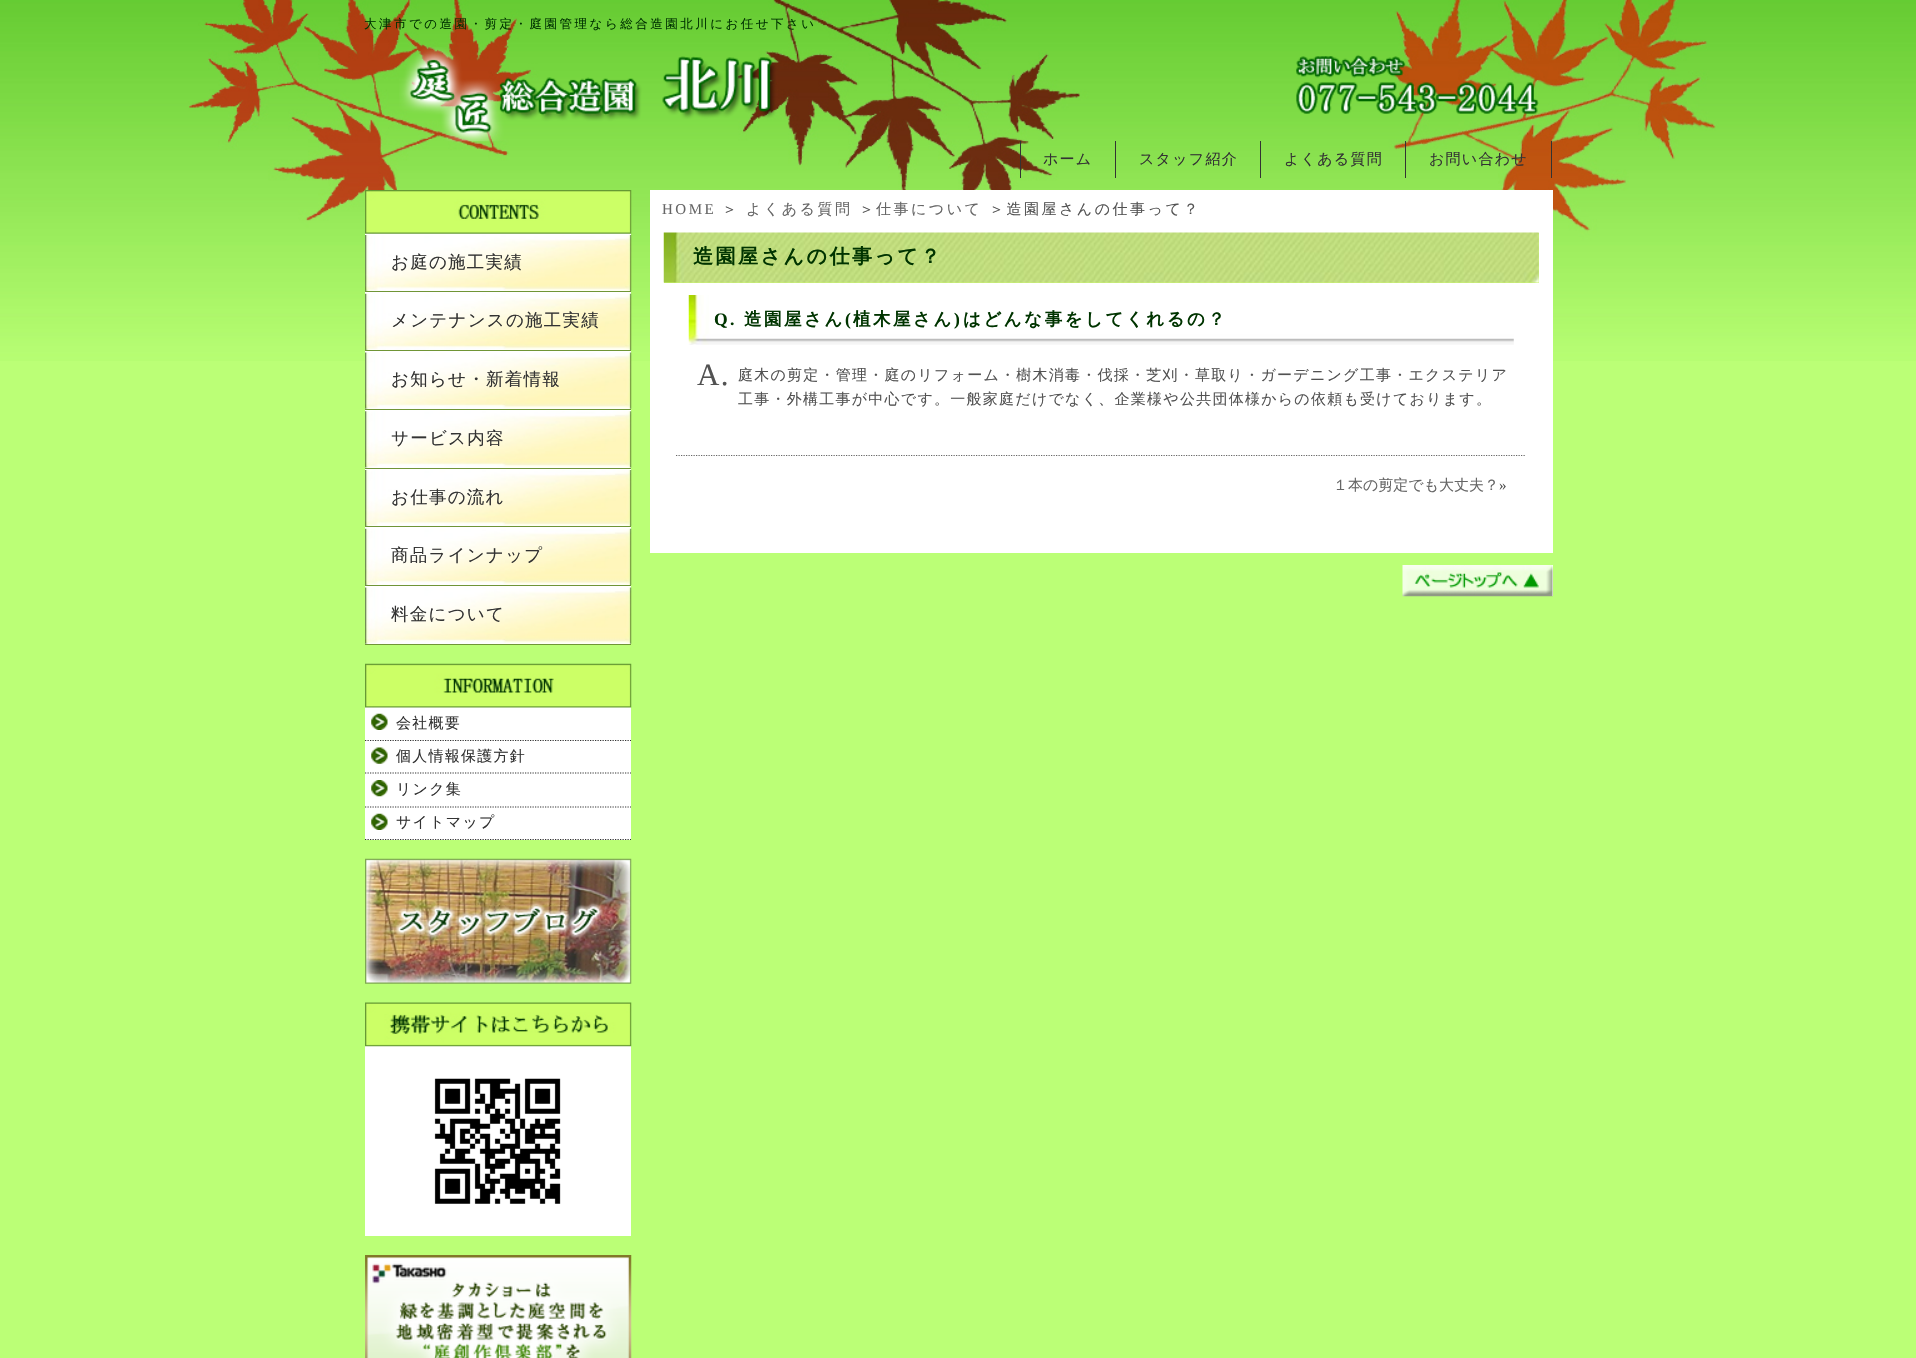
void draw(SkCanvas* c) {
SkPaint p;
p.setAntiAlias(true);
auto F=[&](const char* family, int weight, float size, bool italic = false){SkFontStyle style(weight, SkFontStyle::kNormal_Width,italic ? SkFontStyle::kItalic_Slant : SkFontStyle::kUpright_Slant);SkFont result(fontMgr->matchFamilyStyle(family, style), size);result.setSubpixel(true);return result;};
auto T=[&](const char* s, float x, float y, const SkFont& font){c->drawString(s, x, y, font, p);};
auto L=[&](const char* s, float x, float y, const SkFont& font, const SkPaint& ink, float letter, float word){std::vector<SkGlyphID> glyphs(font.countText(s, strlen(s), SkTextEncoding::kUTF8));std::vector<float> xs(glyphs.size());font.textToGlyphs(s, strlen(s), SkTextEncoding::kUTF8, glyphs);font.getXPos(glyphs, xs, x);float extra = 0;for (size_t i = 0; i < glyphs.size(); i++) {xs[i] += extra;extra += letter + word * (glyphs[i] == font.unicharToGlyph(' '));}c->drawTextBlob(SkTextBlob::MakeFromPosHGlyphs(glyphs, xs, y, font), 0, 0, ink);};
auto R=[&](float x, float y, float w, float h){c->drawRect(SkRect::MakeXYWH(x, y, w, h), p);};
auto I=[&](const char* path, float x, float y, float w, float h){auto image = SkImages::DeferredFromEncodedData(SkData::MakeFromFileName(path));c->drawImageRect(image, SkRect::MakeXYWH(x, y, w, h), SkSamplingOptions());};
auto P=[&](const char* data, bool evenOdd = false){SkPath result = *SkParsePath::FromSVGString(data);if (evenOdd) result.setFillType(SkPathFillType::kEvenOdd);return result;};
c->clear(0xffbbff76);
I("1.png",0,0,1916,361);
auto f1 = F("WenQuanYi Zen Hei",500,12.5);
p.setColor(0xff003400);
L("大津市での造園・剪定・庭園管理なら総合造園北川にお任せ下さい",364,28,f1,p,2.5,0);
p.setColor(0xff333333);
R(1020,141,1,37);
R(1115,141,1,37);
R(1260,141,1,37);
R(1405,141,1,37);
I("2.png",399,47,1140,95);
auto f2 = F("WenQuanYi Zen Hei",500,15);
L("ホーム",1043,164,f2,p,1.25,0);
L("スタッフ紹介",1139,164,f2,p,1.25,0);
L("よくある質問",1284,164,f2,p,1.25,0);
R(1551,141,1,37);
L("お問い合わせ",1429,164,f2,p,1.25,0);
p.setColor(0xffffffff);
R(365,233,266,411);
I("3.png",365,190,267,44);
I("4.png",365,235,267,57);
p.setColor(0xff709536);
R(365,291,266,1);
auto f3 = F("WenQuanYi Zen Hei",500,17.5);
p.setColor(0xff333333);
L("お庭の施工実績",391,268,f3,p,1.25,0);
I("5.png",365,293,267,57);
p.setColor(0xff709536);
R(365,350,266,1);
p.setColor(0xff333333);
L("メンテナンスの施工実績",391,326,f3,p,1.25,0);
I("6.png",365,352,267,57);
p.setColor(0xff709536);
R(365,409,266,1);
p.setColor(0xff333333);
L("お知らせ・新着情報",391,385,f3,p,1.25,0);
I("7.png",365,411,267,57);
p.setColor(0xff709536);
R(365,468,266,1);
p.setColor(0xff333333);
L("サービス内容",391,444,f3,p,1.25,0);
I("8.png",365,470,267,57);
p.setColor(0xff709536);
R(365,526,266,1);
p.setColor(0xff333333);
L("お仕事の流れ",391,503,f3,p,1.25,0);
I("9.png",365,528,267,57);
p.setColor(0xff709536);
R(365,585,266,1);
p.setColor(0xff333333);
L("商品ラインナップ",391,561,f3,p,1.25,0);
I("10.png",365,587,267,57);
p.setColor(0xff709536);
R(365,644,266,1);
p.setColor(0xff333333);
L("料金について",391,620,f3,p,1.25,0);
p.setColor(0xffffffff);
R(365,707,266,133);
I("11.png",365,663,267,45);
I("12.png",371,713,17,17);
p.setStroke(true);
p.setStrokeWidth(1.2);
p.setColor(0xff333333);
p.setPathEffect(SkDashPathEffect::Make({{1.25f,1.25f}}, 0));
c->drawPath(P("M365 740.5h266"),p);
p.setPathEffect(nullptr);
p.setStroke(false);
L("会社概要",396,728,f2,p,1.25,0);
I("13.png",371,747,17,17);
p.setStroke(true);
p.setPathEffect(SkDashPathEffect::Make({{1.25f,1.25f}}, 0));
c->drawPath(P("M365 773h266"),p);
p.setPathEffect(nullptr);
p.setStroke(false);
L("個人情報保護方針",396,761,f2,p,1.25,0);
I("14.png",371,780,17,17);
p.setStroke(true);
p.setPathEffect(SkDashPathEffect::Make({{1.25f,1.25f}}, 0));
c->drawPath(P("M365 807h266"),p);
p.setPathEffect(nullptr);
p.setStroke(false);
L("リンク集",396,794,f2,p,1.25,0);
I("12.png",371,813,17,17);
p.setStroke(true);
p.setPathEffect(SkDashPathEffect::Make({{1.25f,1.25f}}, 0));
c->drawPath(P("M365 839.5h266"),p);
p.setPathEffect(nullptr);
p.setStroke(false);
L("サイトマップ",396,827,f2,p,1.25,0);
I("15.png",365,858,267,126);
p.setColor(0xffffffff);
R(365,1046,266,190);
I("16.png",365,1002,267,45);
I("17.png",434,1078,127,126);
I("18.png",365,1255,267,103);
R(650,190,903,363);
auto f4 = F("Liberation Serif",400,15);
p.setColor(0xff666666);
L("HOME",662,214,f4,p,2.5,0);
p.setColor(0xff525252);
L("＞",722,214,f2,p,2.5,0);
p.setColor(0xff666666);
L("よくある質問",746,214,f2,p,2.5,0);
p.setColor(0xff525252);
L("＞",859,214,f2,p,2.5,0);
p.setColor(0xff666666);
L("仕事について",876,214,f2,p,2.5,0);
p.setColor(0xff525252);
L("＞造園屋さんの仕事って？",989,214,f2,p,2.5,0);
p.setColor(0xffcaf471);
R(664,233,875,50);
I("19.png",663,232,876,51);
auto f5 = F("WenQuanYi Zen Hei",700,20);
p.setColor(0xff003400);
L("造園屋さんの仕事って？",693,263,f5,p,2.5,0);
I("20.png",688,295,826,50);
auto f6 = F("Liberation Serif",700,17.5);
L("Q.",714,325,f6,p,2.5,0);
auto f7 = F("WenQuanYi Zen Hei",700,17.5);
L("造園屋さん",744,325,f7,p,2.5,0);
L("(",845,325,f6,p,2.5,0);
L("植木屋さん",853,325,f7,p,2.5,0);
L(")",954,325,f6,p,2.5,0);
L("はどんな事をしてくれるの？",963,325,f7,p,2.5,0);
auto f8 = F("Liberation Serif",400,31);
p.setColor(0xff525252);
L("A.",697,385,f8,p,1.25,0);
L("庭木の剪定・管理・庭のリフォーム・樹木消毒・伐採・芝刈・草取り・ガーデニング工事・エクステリア",738,380,f2,p,1.25,0);
L("工事・外構工事が中心です。一般家庭だけでなく、企業様や公共団体様からの依頼も受けております。",738,404,f2,p,1.25,0);
p.setStroke(true);
p.setColor(0xff666666);
p.setPathEffect(SkDashPathEffect::Make({{1.25f,1.25f}}, 0));
c->drawPath(P("M676 455.5h850"),p);
p.setPathEffect(nullptr);
p.setStroke(false);
T("１本の剪定でも大丈夫？",1333,490,f2);
p.setColor(0xff525252);
T("»",1499,490,f4);
p.setColor(0xffffffff);
R(1552,565,1,31);
I("21.png",1402,565,151,32);
}
